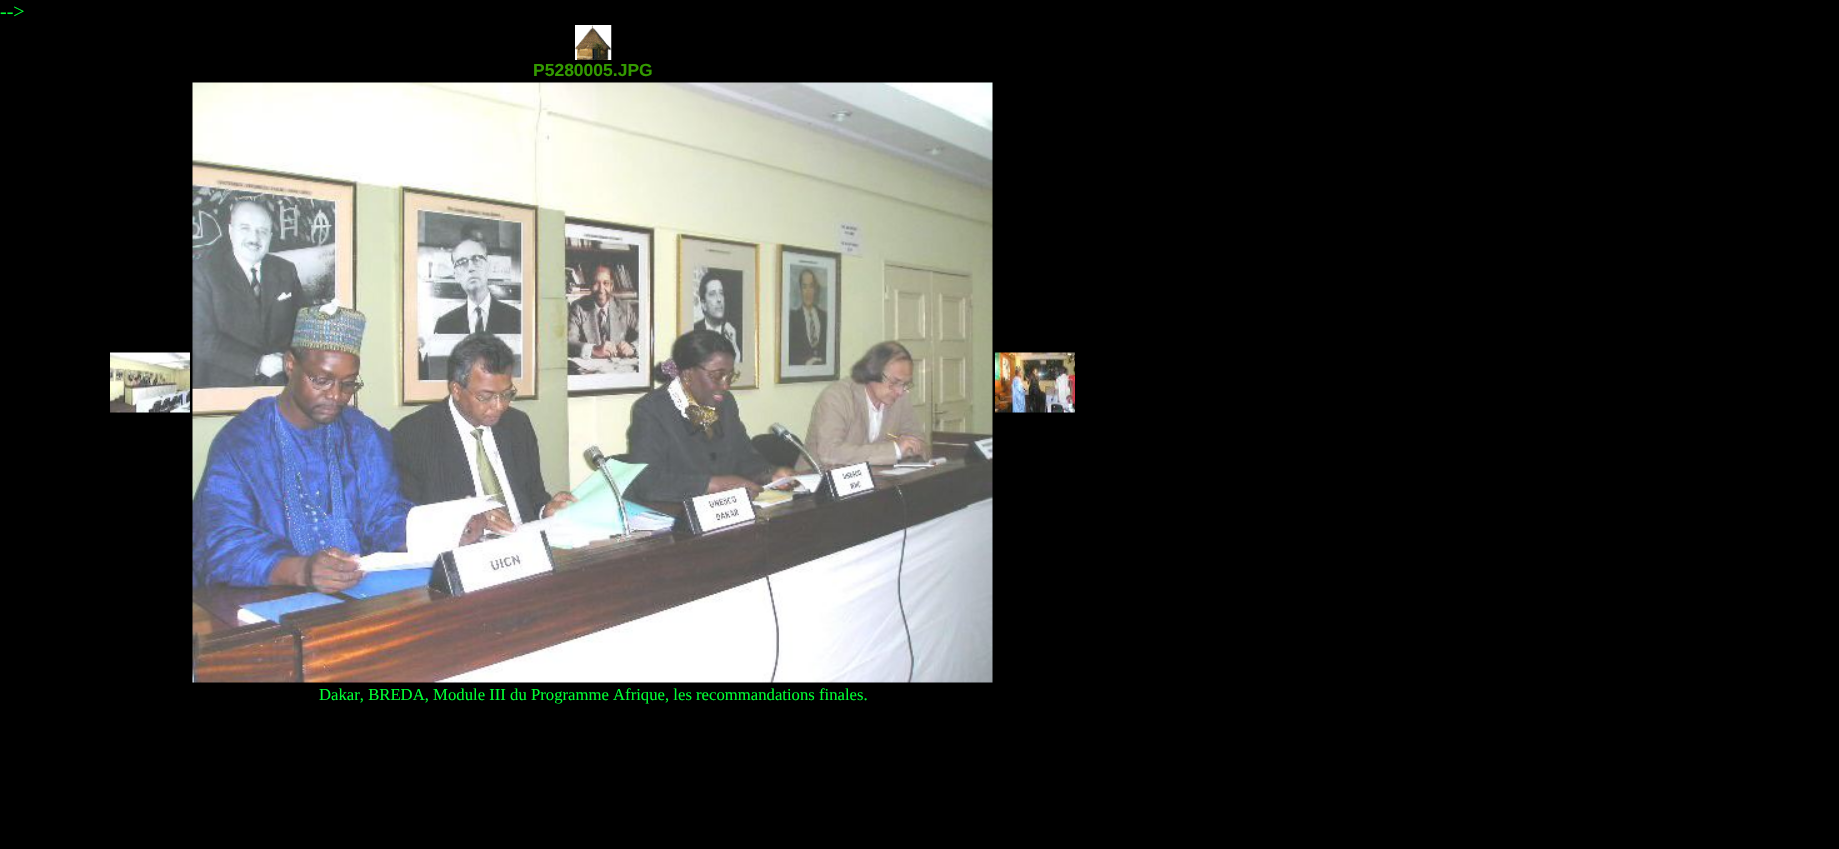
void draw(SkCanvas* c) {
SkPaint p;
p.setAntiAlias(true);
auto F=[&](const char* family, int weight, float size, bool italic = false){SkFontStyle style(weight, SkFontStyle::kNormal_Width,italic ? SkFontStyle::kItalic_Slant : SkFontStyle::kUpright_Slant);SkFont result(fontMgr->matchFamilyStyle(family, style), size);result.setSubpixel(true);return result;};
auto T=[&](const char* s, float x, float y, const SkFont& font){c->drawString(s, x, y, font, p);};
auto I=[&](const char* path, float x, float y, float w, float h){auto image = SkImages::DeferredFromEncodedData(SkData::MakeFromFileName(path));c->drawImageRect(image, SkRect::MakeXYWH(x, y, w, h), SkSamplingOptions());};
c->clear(0xff000000);
auto f1 = F("Liberation Serif",400,20);
p.setColor(0xff00ff33);
T("-->",0,18,f1);
I("1.png",575,25,37,35);
auto f2 = F("Liberation Sans",700,17.5);
p.setColor(0xff339900);
T("P5280005.JPG",533,76,f2);
I("2.png",110,352,80,61);
I("3.png",192,82,801,601);
I("4.png",995,352,80,61);
auto f3 = F("Liberation Serif",400,16.7);
p.setColor(0xff00ff33);
T("Dakar, BREDA, Module III du Programme Afrique, les recommandations finales.",319,700,f3);
}
